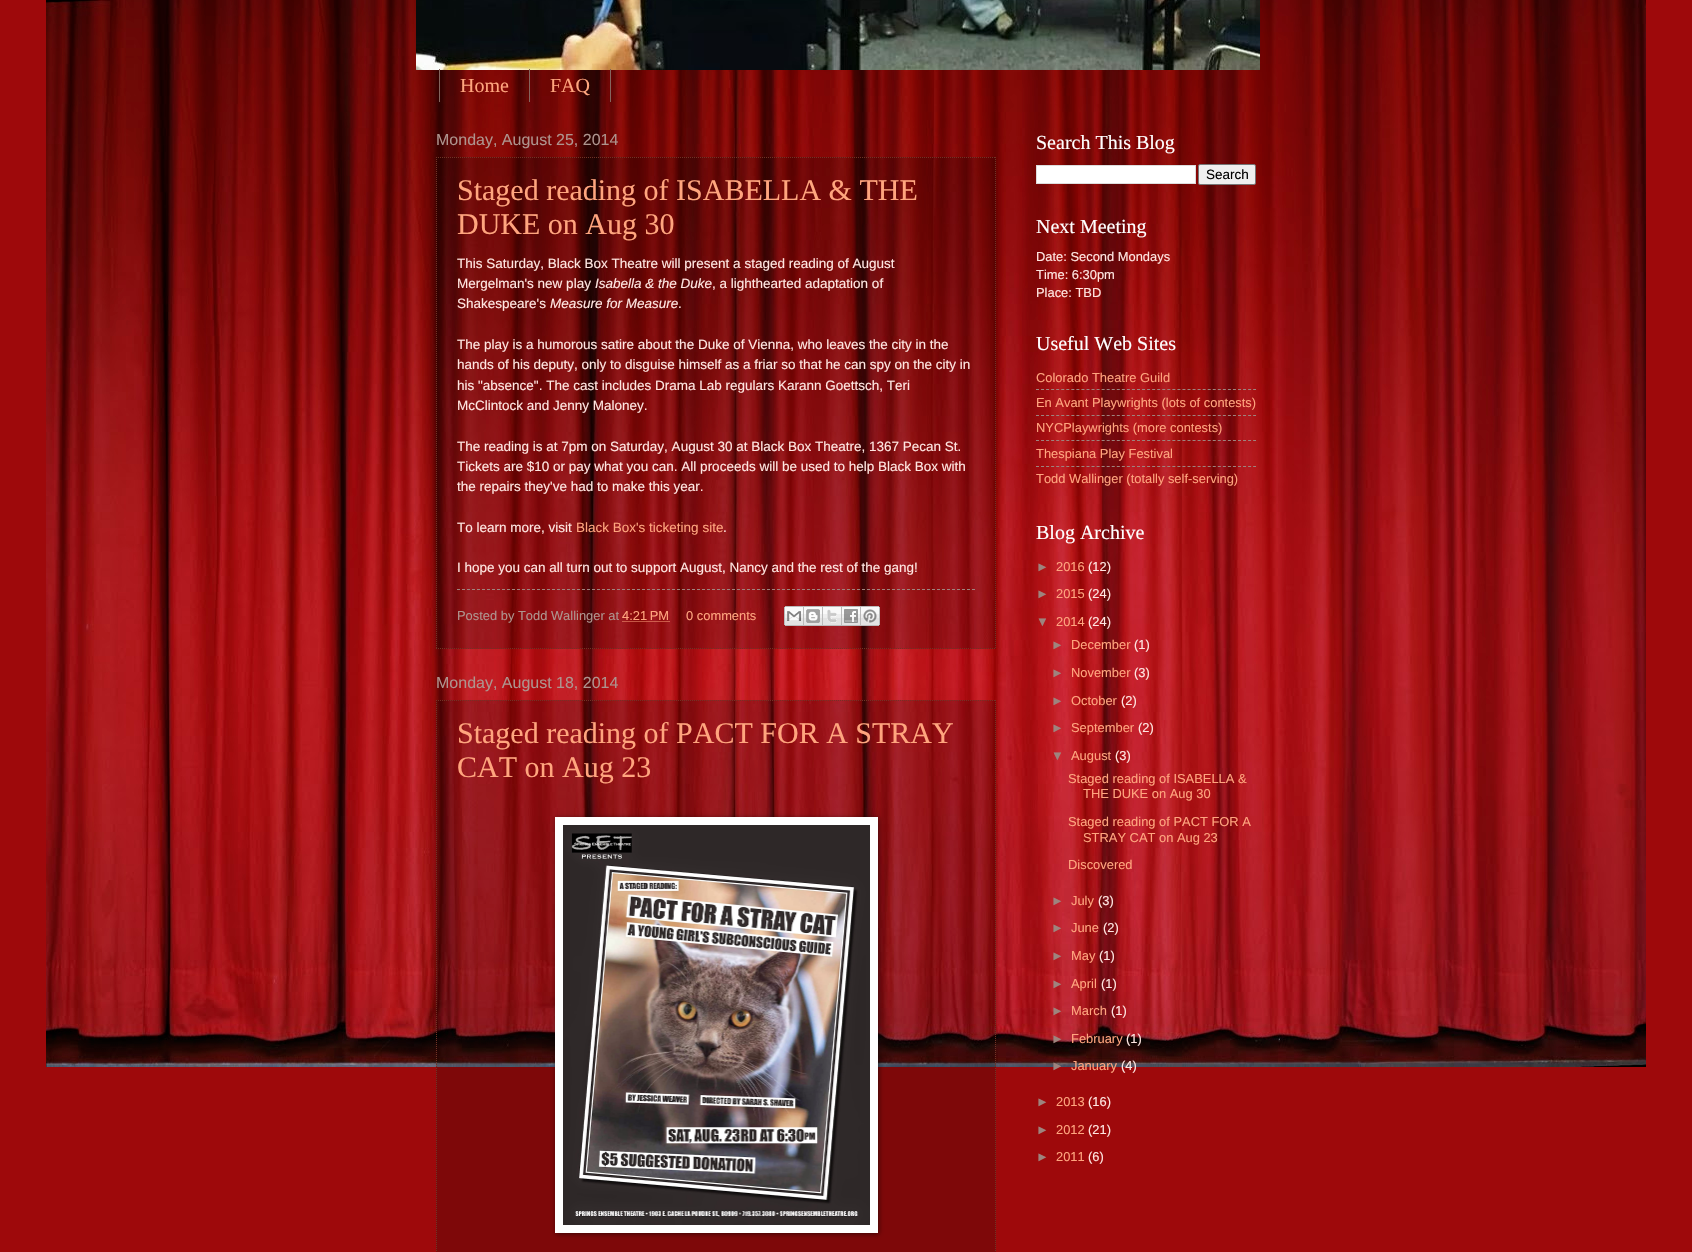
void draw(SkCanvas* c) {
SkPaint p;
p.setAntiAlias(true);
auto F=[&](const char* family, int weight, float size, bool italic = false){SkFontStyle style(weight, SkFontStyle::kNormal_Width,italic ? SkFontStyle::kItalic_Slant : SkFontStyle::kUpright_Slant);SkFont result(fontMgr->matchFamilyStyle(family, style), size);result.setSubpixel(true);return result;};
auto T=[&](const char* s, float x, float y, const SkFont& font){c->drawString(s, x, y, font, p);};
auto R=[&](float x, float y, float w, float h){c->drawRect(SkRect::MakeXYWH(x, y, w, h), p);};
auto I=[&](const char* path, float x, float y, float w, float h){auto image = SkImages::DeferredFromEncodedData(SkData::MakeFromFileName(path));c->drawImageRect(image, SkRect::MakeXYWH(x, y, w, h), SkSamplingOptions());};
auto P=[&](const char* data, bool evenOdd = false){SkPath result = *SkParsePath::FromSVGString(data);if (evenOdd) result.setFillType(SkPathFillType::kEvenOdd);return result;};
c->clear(0xff9e090b);
I("1.png",46,0,1600,1067);
I("2.png",416,0,844,70);
p.setColor(0xff84655e);
R(529,69,1,33);
R(439,69,1,33);
auto f1 = F("Liberation Serif",400,20);
p.setColor(0xffffa57e);
T("Home",460,92,f1);
p.setColor(0xff84655e);
R(610,69,1,33);
p.setColor(0xffffa57e);
T("FAQ",550,92,f1);
auto f2 = F("Liberation Sans",400,16);
p.setColor(0xffae948e);
T("Monday, August 25, 2014",436,145,f2);
p.setColor(0x33000000);
R(436,157,560,492);
p.setStroke(true);
p.setStrokeWidth(1);
p.setColor(0xff723326);
p.setPathEffect(SkDashPathEffect::Make({{1,1}}, 0));
c->drawPath(P("M436 157.5h560"),p);
p.setPathEffect(nullptr);
p.setPathEffect(SkDashPathEffect::Make({{1,1}}, 0));
c->drawPath(P("M995.5 157v492"),p);
p.setPathEffect(nullptr);
p.setPathEffect(SkDashPathEffect::Make({{1,1}}, 0));
c->drawPath(P("M436 648.5h560"),p);
p.setPathEffect(nullptr);
p.setPathEffect(SkDashPathEffect::Make({{1,1}}, 0));
c->drawPath(P("M436.5 157v492"),p);
p.setPathEffect(nullptr);
auto f3 = F("Liberation Serif",400,30);
p.setStroke(false);
p.setColor(0xffffa57e);
T("Staged reading of ISABELLA & THE",457,200,f3);
T("DUKE on Aug 30",457,234,f3);
auto f4 = F("Liberation Sans",400,13.5);
p.setColor(0xffffe6e1);
T("This Saturday, Black Box Theatre will present a staged reading of August",457,268,f4);
T("Mergelman's new play",457,288,f4);
auto f5 = F("Liberation Sans",400,13.5,true);
T("Isabella & the Duke",595,288,f5);
T(", a lighthearted adaptation of",712,288,f4);
T("Shakespeare's",457,308,f4);
T("Measure for Measure",550,308,f5);
T(".",678,308,f4);
T("The play is a humorous satire about the Duke of Vienna, who leaves the city in the",457,349,f4);
T("hands of his deputy, only to disguise himself as a friar so that he can spy on the city in",457,369,f4);
T("his \"absence\". The cast includes Drama Lab regulars Karann Goettsch, Teri",457,390,f4);
T("McClintock and Jenny Maloney.",457,410,f4);
T("The reading is at 7pm on Saturday, August 30 at Black Box Theatre, 1367 Pecan St.",457,451,f4);
T("Tickets are $10 or pay what you can. All proceeds will be used to help Black Box with",457,471,f4);
T("the repairs they've had to make this year.",457,491,f4);
T("To learn more, visit",457,532,f4);
p.setColor(0xffffa57e);
T("Black Box's ticketing site",576,532,f4);
p.setColor(0xffffe6e1);
T(".",723,532,f4);
T("I hope you can all turn out to support August, Nancy and the rest of the gang!",457,572,f4);
p.setStroke(true);
p.setColor(0xff9e847e);
p.setPathEffect(SkDashPathEffect::Make({{3,2}}, 0));
c->drawPath(P("M457 589.5h518"),p);
p.setPathEffect(nullptr);
auto f6 = F("Liberation Sans",400,12.9);
p.setStroke(false);
p.setColor(0xffae948e);
T("Posted by Todd Wallinger at",457,620,f6);
p.setColor(0xffffa57e);
T("4:21 PM",622,620,f6);
p.setStroke(true);
p.setPathEffect(SkDashPathEffect::Make({{1,1}}, 0));
c->drawPath(P("M622.5 621.5h47"),p);
p.setPathEffect(nullptr);
p.setStroke(false);
T("0 comments",686,620,f6);
I("3.png",784,606,20,20);
I("4.png",804,606,19,20);
I("5.png",823,606,19,20);
I("6.png",842,606,19,20);
I("7.png",861,606,19,20);
p.setColor(0xffae948e);
T("Monday, August 18, 2014",436,688,f2);
p.setColor(0x33000000);
R(436,700,560,552);
p.setStroke(true);
p.setColor(0xff723326);
p.setPathEffect(SkDashPathEffect::Make({{1,1}}, 0));
c->drawPath(P("M436 700.5h560"),p);
p.setPathEffect(nullptr);
p.setPathEffect(SkDashPathEffect::Make({{1,1}}, 0));
c->drawPath(P("M995.5 700v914"),p);
p.setPathEffect(nullptr);
p.setPathEffect(SkDashPathEffect::Make({{1,1}}, 0));
c->drawPath(P("M436.5 700v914"),p);
p.setPathEffect(nullptr);
p.setStroke(false);
p.setColor(0xffffa57e);
T("Staged reading of PACT FOR A STRAY",457,743,f3);
T("CAT on Aug 23",457,777,f3);
p.setColor(0x80000000);
p.setMaskFilter(SkMaskFilter::MakeBlur(kNormal_SkBlurStyle, 2.5));
c->drawRect(SkRect::MakeXYWH(556,818,323,416),p);
p.setMaskFilter(nullptr);
p.setColor(0xffffffff);
R(555,817,323,416);
I("8.png",563,825,307,400);
T("Search This Blog",1036,149,f1);
c->drawRect(SkRect::MakeXYWH(1036.5,165.5,159,18),p);
p.setStroke(true);
p.setColor(0xffdddddd);
c->drawRect(SkRect::MakeXYWH(1036.5,165.5,159,18),p);
p.setStroke(false);
p.setColor(0xffefefef);
c->drawRoundRect(SkRect::MakeXYWH(1198.5,164.5,57,20),1.5,1.5,p);
p.setStroke(true);
p.setColor(0xff767676);
c->drawRoundRect(SkRect::MakeXYWH(1198.5,164.5,57,20),1.5,1.5,p);
p.setStroke(false);
p.setColor(0xff000000);
T("Search",1206,179,f4);
p.setColor(0xffffffff);
T("Next Meeting",1036,233,f1);
p.setColor(0xffffe6e1);
T("Date: Second Mondays",1036,261,f6);
T("Time: 6:30pm",1036,279,f6);
T("Place: TBD",1036,297,f6);
p.setColor(0xffffffff);
T("Useful Web Sites",1036,350,f1);
p.setColor(0xffffa57e);
T("Colorado Theatre Guild",1036,382,f6);
p.setStroke(true);
p.setColor(0xff9e847e);
p.setPathEffect(SkDashPathEffect::Make({{3,2.05f}}, 0));
c->drawPath(P("M1036 389.5h220"),p);
p.setPathEffect(nullptr);
p.setStroke(false);
p.setColor(0xffffa57e);
T("En Avant Playwrights (lots of contests)",1036,407,f6);
p.setStroke(true);
p.setColor(0xff9e847e);
p.setPathEffect(SkDashPathEffect::Make({{3,2.05f}}, 0));
c->drawPath(P("M1036 415.5h220"),p);
p.setPathEffect(nullptr);
p.setStroke(false);
p.setColor(0xffffa57e);
T("NYCPlaywrights (more contests)",1036,432,f6);
p.setStroke(true);
p.setColor(0xff9e847e);
p.setPathEffect(SkDashPathEffect::Make({{3,2.05f}}, 0));
c->drawPath(P("M1036 440.5h220"),p);
p.setPathEffect(nullptr);
p.setStroke(false);
p.setColor(0xffffa57e);
T("Thespiana Play Festival",1036,458,f6);
p.setStroke(true);
p.setColor(0xff9e847e);
p.setPathEffect(SkDashPathEffect::Make({{3,2.05f}}, 0));
c->drawPath(P("M1036 466.5h220"),p);
p.setPathEffect(nullptr);
p.setStroke(false);
p.setColor(0xffffa57e);
T("Todd Wallinger (totally self-serving)",1036,483,f6);
p.setColor(0xffffffff);
T("Blog Archive",1036,539,f1);
p.setColor(0xff9e847e);
T("►",1036,571,f6);
p.setColor(0xffffa57e);
T("2016",1056,571,f6);
p.setColor(0xffffe6e1);
T("(12)",1088,571,f6);
p.setColor(0xff9e847e);
T("►",1036,598,f6);
p.setColor(0xffffa57e);
T("2015",1056,598,f6);
p.setColor(0xffffe6e1);
T("(24)",1088,598,f6);
p.setColor(0xff9e847e);
T("▼",1036,626,f6);
p.setColor(0xffffa57e);
T("2014",1056,626,f6);
p.setColor(0xffffe6e1);
T("(24)",1088,626,f6);
p.setColor(0xff9e847e);
T("►",1051,649,f6);
p.setColor(0xffffa57e);
T("December",1071,649,f6);
p.setColor(0xffffe6e1);
T("(1)",1134,649,f6);
p.setColor(0xff9e847e);
T("►",1051,677,f6);
p.setColor(0xffffa57e);
T("November",1071,677,f6);
p.setColor(0xffffe6e1);
T("(3)",1134,677,f6);
p.setColor(0xff9e847e);
T("►",1051,705,f6);
p.setColor(0xffffa57e);
T("October",1071,705,f6);
p.setColor(0xffffe6e1);
T("(2)",1121,705,f6);
p.setColor(0xff9e847e);
T("►",1051,732,f6);
p.setColor(0xffffa57e);
T("September",1071,732,f6);
p.setColor(0xffffe6e1);
T("(2)",1138,732,f6);
p.setColor(0xff9e847e);
T("▼",1051,760,f6);
p.setColor(0xffffa57e);
T("August",1071,760,f6);
p.setColor(0xffffe6e1);
T("(3)",1115,760,f6);
p.setColor(0xffffa57e);
T("Staged reading of ISABELLA &",1068,783,f6);
T("THE DUKE on Aug 30",1083,798,f6);
T("Staged reading of PACT FOR A",1068,826,f6);
T("STRAY CAT on Aug 23",1083,842,f6);
T("Discovered",1068,869,f6);
p.setColor(0xff9e847e);
T("►",1051,905,f6);
p.setColor(0xffffa57e);
T("July",1071,905,f6);
p.setColor(0xffffe6e1);
T("(3)",1098,905,f6);
p.setColor(0xff9e847e);
T("►",1051,932,f6);
p.setColor(0xffffa57e);
T("June",1071,932,f6);
p.setColor(0xffffe6e1);
T("(2)",1103,932,f6);
p.setColor(0xff9e847e);
T("►",1051,960,f6);
p.setColor(0xffffa57e);
T("May",1071,960,f6);
p.setColor(0xffffe6e1);
T("(1)",1099,960,f6);
p.setColor(0xff9e847e);
T("►",1051,988,f6);
p.setColor(0xffffa57e);
T("April",1071,988,f6);
p.setColor(0xffffe6e1);
T("(1)",1101,988,f6);
p.setColor(0xff9e847e);
T("►",1051,1015,f6);
p.setColor(0xffffa57e);
T("March",1071,1015,f6);
p.setColor(0xffffe6e1);
T("(1)",1111,1015,f6);
p.setColor(0xff9e847e);
T("►",1051,1043,f6);
p.setColor(0xffffa57e);
T("February",1071,1043,f6);
p.setColor(0xffffe6e1);
T("(1)",1126,1043,f6);
p.setColor(0xff9e847e);
T("►",1051,1070,f6);
p.setColor(0xffffa57e);
T("January",1071,1070,f6);
p.setColor(0xffffe6e1);
T("(4)",1121,1070,f6);
p.setColor(0xff9e847e);
T("►",1036,1106,f6);
p.setColor(0xffffa57e);
T("2013",1056,1106,f6);
p.setColor(0xffffe6e1);
T("(16)",1088,1106,f6);
p.setColor(0xff9e847e);
T("►",1036,1134,f6);
p.setColor(0xffffa57e);
T("2012",1056,1134,f6);
p.setColor(0xffffe6e1);
T("(21)",1088,1134,f6);
p.setColor(0xff9e847e);
T("►",1036,1161,f6);
p.setColor(0xffffa57e);
T("2011",1056,1161,f6);
p.setColor(0xffffe6e1);
T("(6)",1088,1161,f6);
}
